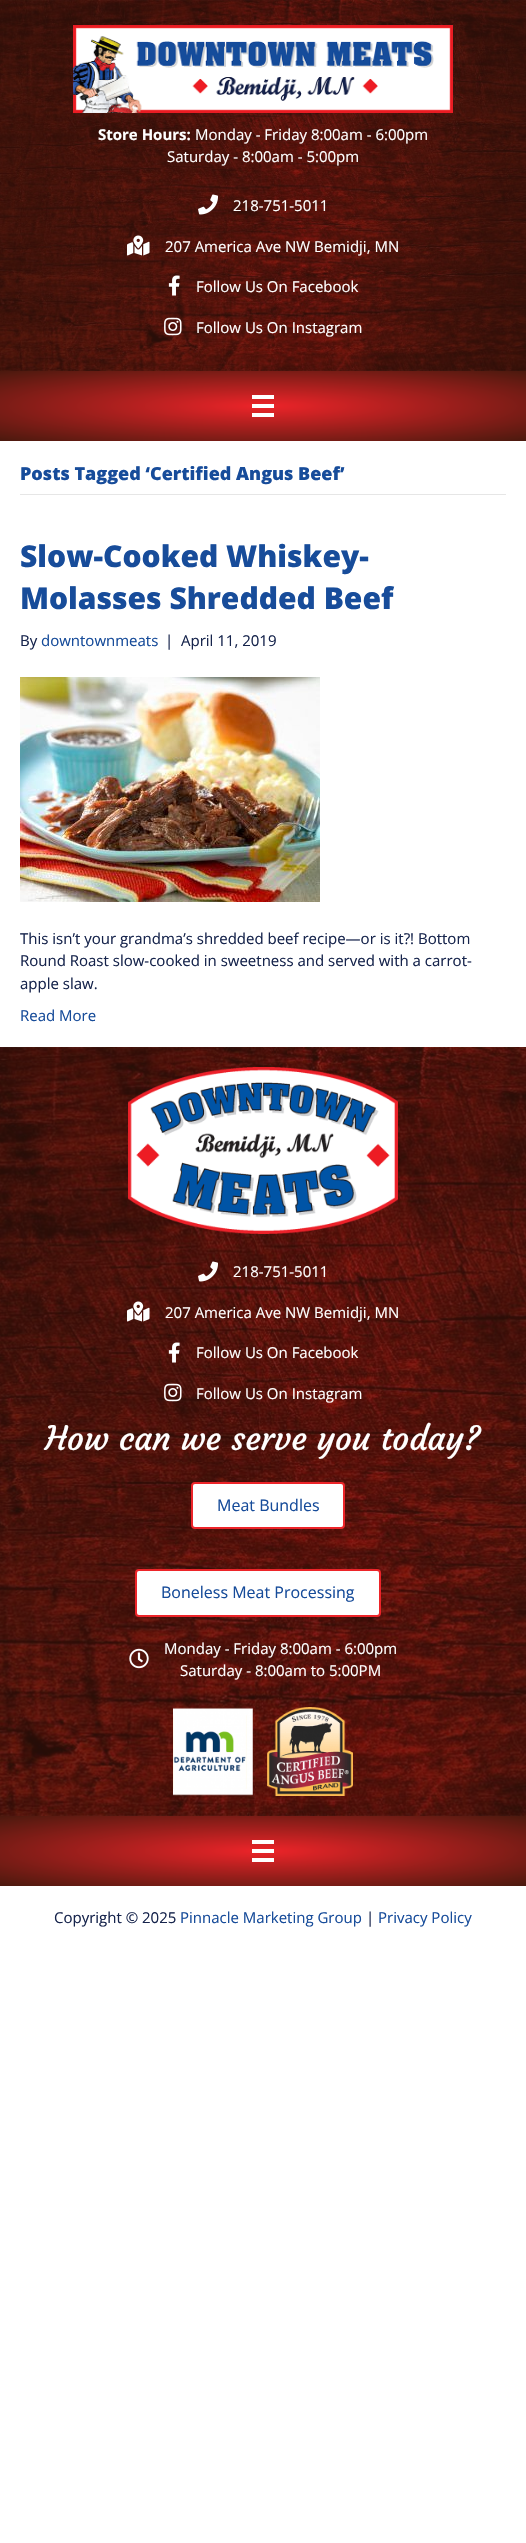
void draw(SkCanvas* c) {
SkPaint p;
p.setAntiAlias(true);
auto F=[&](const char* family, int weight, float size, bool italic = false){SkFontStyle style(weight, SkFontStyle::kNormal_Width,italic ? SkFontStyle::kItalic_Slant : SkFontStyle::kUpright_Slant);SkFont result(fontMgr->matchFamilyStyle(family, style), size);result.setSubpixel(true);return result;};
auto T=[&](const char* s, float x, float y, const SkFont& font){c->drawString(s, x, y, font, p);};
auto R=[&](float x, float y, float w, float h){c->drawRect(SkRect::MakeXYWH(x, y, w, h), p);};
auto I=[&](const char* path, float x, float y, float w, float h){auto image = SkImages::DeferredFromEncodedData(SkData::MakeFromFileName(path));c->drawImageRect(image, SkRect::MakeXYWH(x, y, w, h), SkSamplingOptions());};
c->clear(0xffffffff);
I("1.png",0,0,526,371);
I("2.png",73,25,380,88);
auto f1 = F("Open Sans",700,15);
p.setColor(0xffffffff);
T("Store Hours:",98,140,f1);
auto f2 = F("Open Sans",400,15);
T("Monday - Friday 8:00am - 6:00pm",195,140,f2);
T("Saturday - 8:00am - 5:00pm",167,162,f2);
I("3.png",198,194,20,21);
T("218-751-5011",233,211,f2);
I("4.png",127,235,23,21);
T("207 America Ave NW Bemidji, MN",165,252,f2);
I("5.png",168,275,12,21);
T("Follow Us On Facebook",196,292,f2);
I("6.png",164,317,18,19);
T("Follow Us On Instagram",196,333,f2);
{
const SkColor colors[] = {0xffed2429,0xff4b190e};
const float stops[] = {0,1};
SkMatrix m = SkMatrix::Translate(263,406).preScale(372,49);
p.setShader(SkGradientShader::MakeRadial({0, 0}, 1, colors, stops, 2, SkTileMode::kClamp, 0, &m));
p.setAlpha(255);
}
R(0,371,526,70);
p.setShader(nullptr);
p.setColor(0xffffffff);
R(252,395,22,4);
R(252,404,22,4);
R(252,413,22,4);
p.setColor(0xffe6e6e6);
R(20,494,486,1);
auto f3 = F("Open Sans",800,18);
p.setColor(0xff174c9a);
T("Posts Tagged ‘Certified Angus Beef’",20,480,f3);
auto f4 = F("Open Sans",800,30);
T("Slow-Cooked Whiskey-",20,567,f4);
T("Molasses Shredded Beef",20,609,f4);
p.setColor(0xff16244c);
T("By",20,646,f2);
p.setColor(0xff174c9a);
T("downtownmeats",41,646,f2);
p.setColor(0xff16244c);
T("|",165,646,f2);
T("April 11, 2019",181,646,f2);
I("7.png",20,677,300,225);
T("This isn’t your grandma’s shredded beef recipe—or is it?! Bottom",20,944,f2);
T("Round Roast slow-cooked in sweetness and served with a carrot-",20,966,f2);
T("apple slaw.",20,989,f2);
p.setColor(0xff174c9a);
T("Read More",20,1021,f2);
I("8.png",0,1047,526,769);
I("9.png",128,1067,270,167);
I("10.png",198,1261,20,21);
p.setColor(0xffffffff);
T("218-751-5011",233,1277,f2);
I("11.png",127,1301,23,21);
T("207 America Ave NW Bemidji, MN",165,1318,f2);
I("12.png",168,1342,12,21);
T("Follow Us On Facebook",196,1358,f2);
I("13.png",164,1383,18,19);
T("Follow Us On Instagram",196,1399,f2);
auto f5 = F("Courgette",400,33);
T("How can we serve you today?",45,1450,f5);
c->drawRoundRect(SkRect::MakeXYWH(192,1483,152,45),3,3,p);
p.setStroke(true);
p.setStrokeWidth(2);
p.setColor(0xffed2429);
c->drawRoundRect(SkRect::MakeXYWH(192,1483,152,45),3,3,p);
auto f6 = F("Open Sans",400,16);
p.setStroke(false);
p.setColor(0xff174c9a);
T("Meat Bundles",217,1511,f6);
p.setColor(0xffffffff);
c->drawRoundRect(SkRect::MakeXYWH(136,1570,244,46),3,3,p);
p.setStroke(true);
p.setColor(0xffed2429);
c->drawRoundRect(SkRect::MakeXYWH(136,1570,244,46),3,3,p);
p.setStroke(false);
p.setColor(0xff174c9a);
T("Boneless Meat Processing",161,1598,f6);
I("14.png",129,1648,20,21);
p.setColor(0xffffffff);
T("Monday - Friday 8:00am - 6:00pm",164,1654,f2);
T("Saturday - 8:00am to 5:00PM",180,1676,f2);
I("15.png",173,1707,180,89);
{
const SkColor colors[] = {0xffed2429,0xff4b190e};
const float stops[] = {0,1};
SkMatrix m = SkMatrix::Translate(263,1851).preScale(372,49);
p.setShader(SkGradientShader::MakeRadial({0, 0}, 1, colors, stops, 2, SkTileMode::kClamp, 0, &m));
p.setAlpha(255);
}
R(0,1816,526,70);
p.setShader(nullptr);
p.setColor(0xffffffff);
R(252,1840,22,4);
R(252,1849,22,4);
R(252,1858,22,4);
p.setColor(0xff16244c);
T("Copyright © 2025",54,1923,f2);
p.setColor(0xff174c9a);
T("Pinnacle Marketing Group",180,1923,f2);
p.setColor(0xff16244c);
T("|",366,1923,f2);
p.setColor(0xff174c9a);
T("Privacy Policy",378,1923,f2);
}
